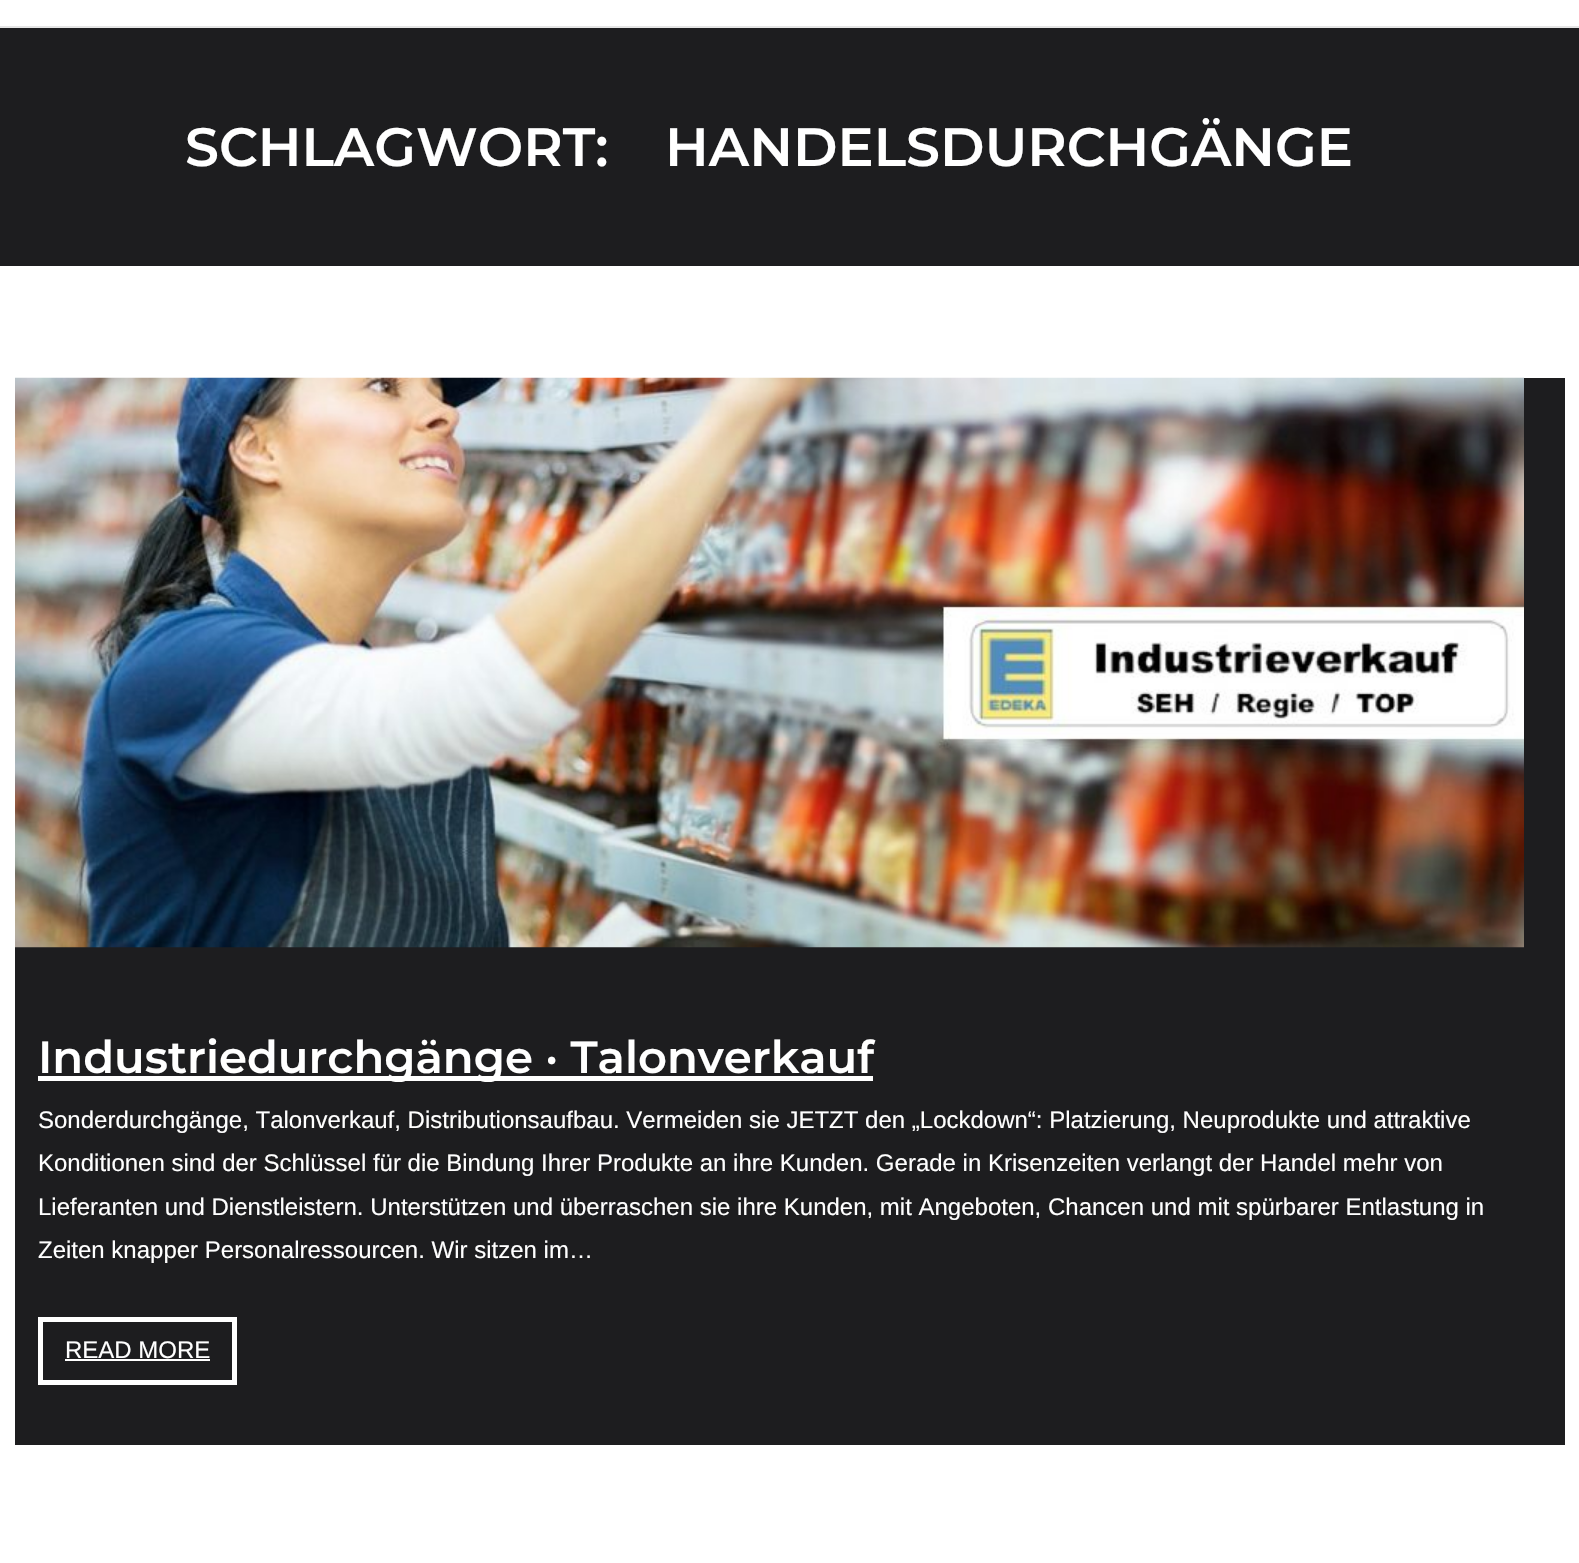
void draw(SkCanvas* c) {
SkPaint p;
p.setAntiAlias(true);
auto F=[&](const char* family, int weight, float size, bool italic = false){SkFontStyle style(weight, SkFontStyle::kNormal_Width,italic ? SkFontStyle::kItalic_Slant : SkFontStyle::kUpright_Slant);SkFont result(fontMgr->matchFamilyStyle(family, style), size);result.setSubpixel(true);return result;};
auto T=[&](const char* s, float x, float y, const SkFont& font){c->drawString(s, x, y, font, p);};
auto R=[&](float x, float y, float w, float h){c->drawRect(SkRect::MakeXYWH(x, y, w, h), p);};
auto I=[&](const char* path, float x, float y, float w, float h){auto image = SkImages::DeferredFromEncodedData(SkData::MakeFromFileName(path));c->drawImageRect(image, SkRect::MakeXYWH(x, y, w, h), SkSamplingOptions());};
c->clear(0xffffffff);
p.setColor(0xffe5e5e5);
R(0,26,1579,2);
p.setColor(0xff1d1d1f);
R(0,28,1579,238);
auto f1 = F("Montserrat",600,54);
p.setColor(0xffffffff);
T("SCHLAGWORT:",185,166,f1);
T("HANDELSDURCHGÄNGE",665,166,f1);
p.setColor(0xff1d1d1f);
R(15,378,1550,1067);
I("1.png",15,377,1509,571);
p.setColor(0xffffffff);
R(38,1076,835,5);
auto f2 = F("Montserrat",600,45);
T("Industriedurchgänge · Talonverkauf",38,1073,f2);
auto f3 = F("Liberation Sans",400,24);
T("Sonderdurchgänge, Talonverkauf, Distributionsaufbau. Vermeiden sie JETZT den „Lockdown“: Platzierung, Neuprodukte und attraktive",38,1128,f3);
T("Konditionen sind der Schlüssel für die Bindung Ihrer Produkte an ihre Kunden. Gerade in Krisenzeiten verlangt der Handel mehr von",38,1171,f3);
T("Lieferanten und Dienstleistern. Unterstützen und überraschen sie ihre Kunden, mit Angeboten, Chancen und mit spürbarer Entlastung in",38,1215,f3);
T("Zeiten knapper Personalressourcen. Wir sitzen im…",38,1258,f3);
p.setStroke(true);
p.setStrokeWidth(5);
c->drawRect(SkRect::MakeXYWH(40.5,1319.5,194,63),p);
p.setStroke(false);
T("READ MORE",65,1358,f3);
R(65,1359,145,2);
}
